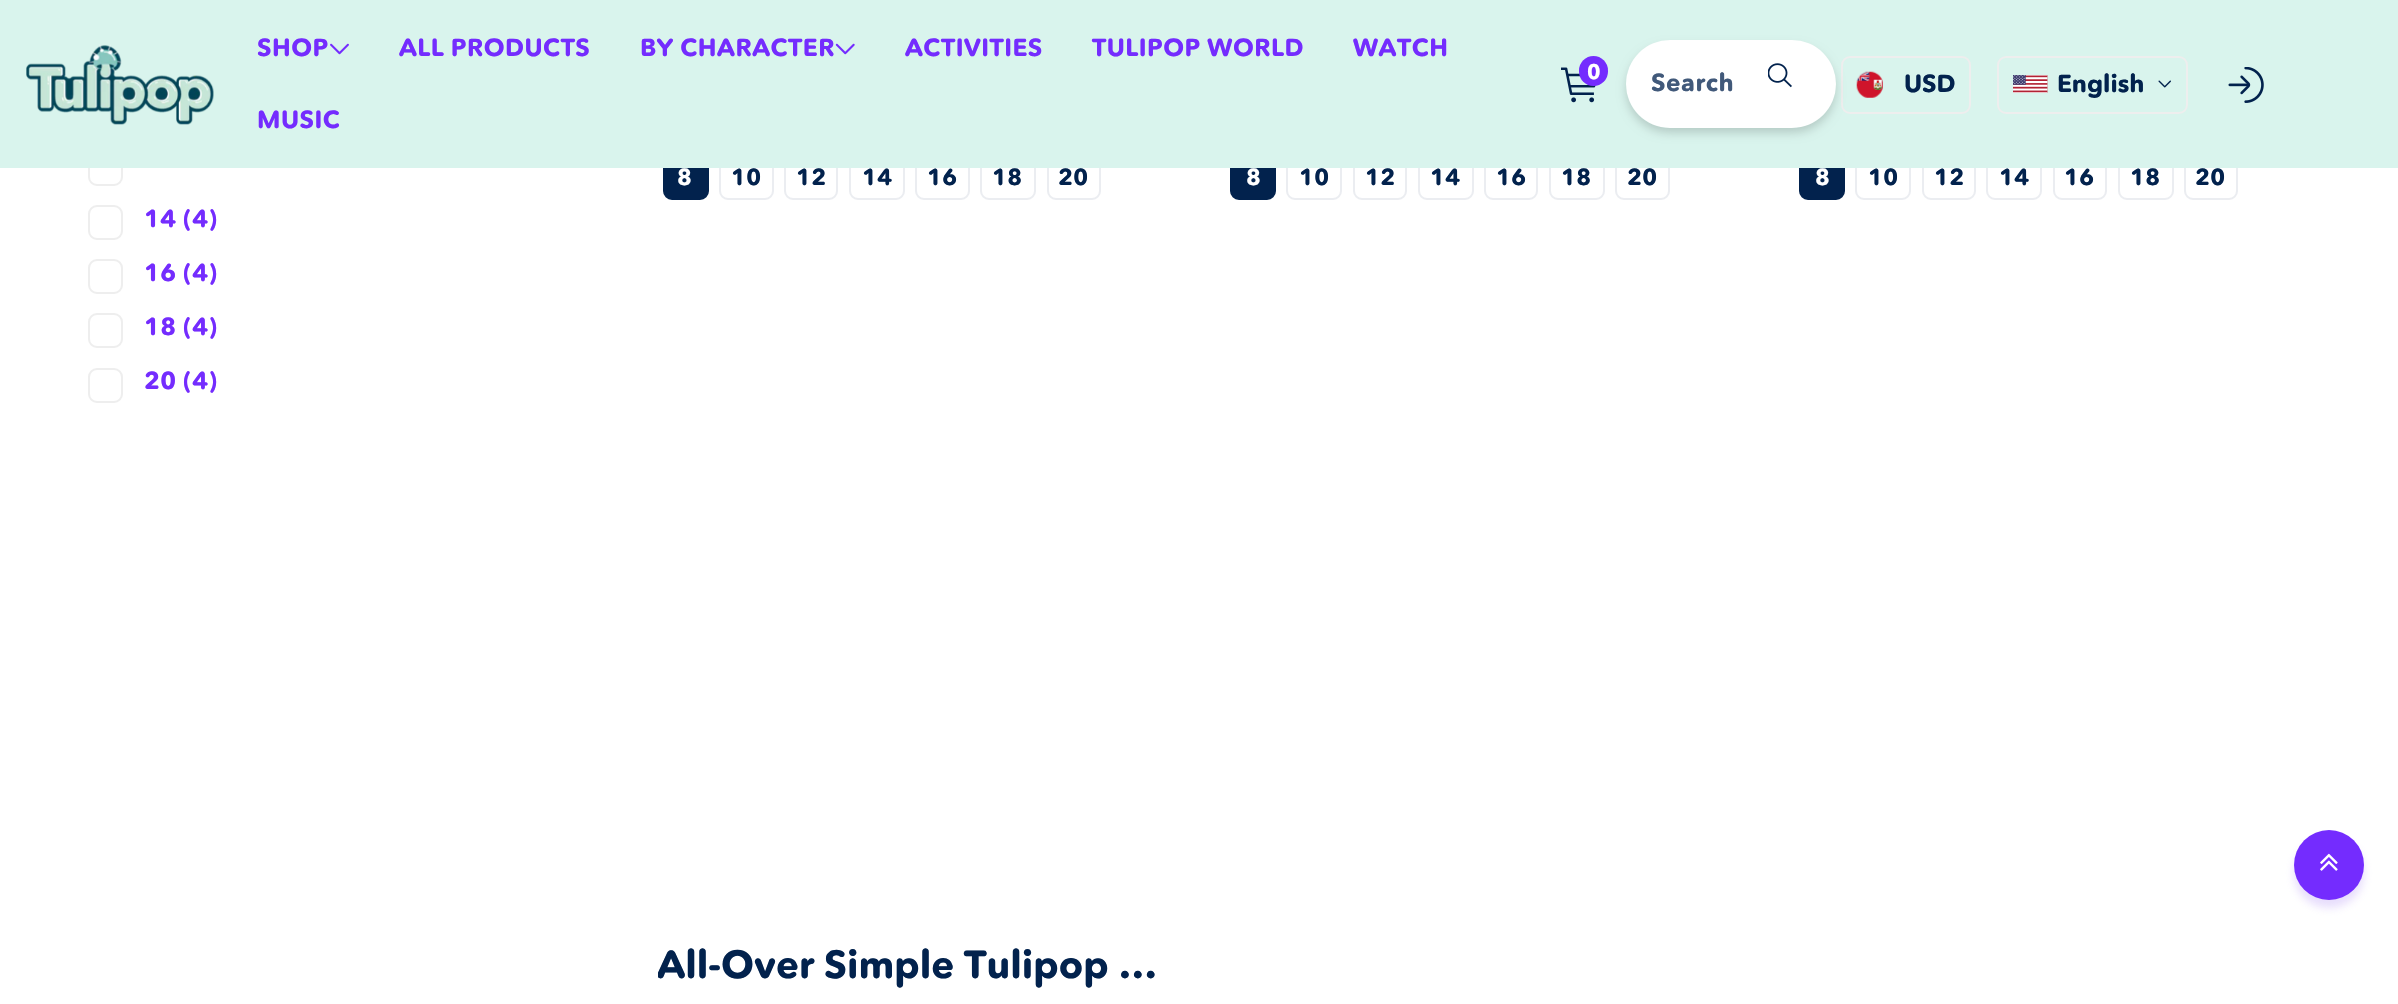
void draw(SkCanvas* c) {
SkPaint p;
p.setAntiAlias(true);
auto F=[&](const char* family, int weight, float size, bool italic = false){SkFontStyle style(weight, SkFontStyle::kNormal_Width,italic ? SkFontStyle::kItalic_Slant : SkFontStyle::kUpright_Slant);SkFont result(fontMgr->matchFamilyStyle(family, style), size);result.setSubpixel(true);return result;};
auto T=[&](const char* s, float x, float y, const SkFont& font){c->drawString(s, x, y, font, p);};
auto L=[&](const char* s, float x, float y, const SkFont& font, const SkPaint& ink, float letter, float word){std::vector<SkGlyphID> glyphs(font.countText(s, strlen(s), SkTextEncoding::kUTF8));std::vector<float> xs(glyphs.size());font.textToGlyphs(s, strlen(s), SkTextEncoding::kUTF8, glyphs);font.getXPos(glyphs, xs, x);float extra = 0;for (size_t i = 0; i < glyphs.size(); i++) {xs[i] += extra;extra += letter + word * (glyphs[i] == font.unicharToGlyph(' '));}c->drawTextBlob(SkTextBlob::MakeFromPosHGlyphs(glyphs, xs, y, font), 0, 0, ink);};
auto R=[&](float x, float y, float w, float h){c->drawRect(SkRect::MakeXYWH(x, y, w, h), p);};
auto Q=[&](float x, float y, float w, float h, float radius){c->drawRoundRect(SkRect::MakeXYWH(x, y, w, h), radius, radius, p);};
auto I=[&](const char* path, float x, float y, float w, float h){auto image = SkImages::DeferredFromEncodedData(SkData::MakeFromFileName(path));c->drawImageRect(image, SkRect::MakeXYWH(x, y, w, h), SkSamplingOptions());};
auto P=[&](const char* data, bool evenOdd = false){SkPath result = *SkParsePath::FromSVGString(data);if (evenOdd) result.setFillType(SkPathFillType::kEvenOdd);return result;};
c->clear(0xffffffff);
p.setStroke(true);
p.setStrokeWidth(2);
p.setColor(0xffeeeeee);
c->drawRoundRect(SkRect::MakeXYWH(89,152,33,33),8,8,p);
p.setStroke(false);
p.setColor(0xff02224d);
c->drawRoundRect(SkRect::MakeXYWH(664,155,44,44),8,8,p);
p.setStroke(true);
c->drawRoundRect(SkRect::MakeXYWH(664,155,44,44),8,8,p);
p.setColor(0xffebedf1);
c->drawRoundRect(SkRect::MakeXYWH(720,155,53,44),8,8,p);
c->drawRoundRect(SkRect::MakeXYWH(785,155,52,44),8,8,p);
c->drawRoundRect(SkRect::MakeXYWH(850,155,54,44),8,8,p);
c->drawRoundRect(SkRect::MakeXYWH(916,155,53,44),8,8,p);
c->drawRoundRect(SkRect::MakeXYWH(981,155,54,44),8,8,p);
c->drawRoundRect(SkRect::MakeXYWH(1048,155,52,44),8,8,p);
p.setStroke(false);
p.setColor(0xff02224d);
c->drawRoundRect(SkRect::MakeXYWH(1231,155,44,44),8,8,p);
p.setStroke(true);
c->drawRoundRect(SkRect::MakeXYWH(1231,155,44,44),8,8,p);
p.setColor(0xffebedf1);
c->drawRoundRect(SkRect::MakeXYWH(1287,155,54,44),8,8,p);
c->drawRoundRect(SkRect::MakeXYWH(1354,155,52,44),8,8,p);
c->drawRoundRect(SkRect::MakeXYWH(1419,155,54,44),8,8,p);
c->drawRoundRect(SkRect::MakeXYWH(1485,155,52,44),8,8,p);
c->drawRoundRect(SkRect::MakeXYWH(1550,155,54,44),8,8,p);
c->drawRoundRect(SkRect::MakeXYWH(1616,155,53,44),8,8,p);
p.setStroke(false);
p.setColor(0xff02224d);
c->drawRoundRect(SkRect::MakeXYWH(1800,155,44,44),8,8,p);
p.setStroke(true);
c->drawRoundRect(SkRect::MakeXYWH(1800,155,44,44),8,8,p);
p.setColor(0xffebedf1);
c->drawRoundRect(SkRect::MakeXYWH(1856,155,54,44),8,8,p);
c->drawRoundRect(SkRect::MakeXYWH(1923,155,52,44),8,8,p);
c->drawRoundRect(SkRect::MakeXYWH(1987,155,54,44),8,8,p);
c->drawRoundRect(SkRect::MakeXYWH(2054,155,52,44),8,8,p);
c->drawRoundRect(SkRect::MakeXYWH(2119,155,54,44),8,8,p);
c->drawRoundRect(SkRect::MakeXYWH(2185,155,52,44),8,8,p);
p.setStroke(false);
p.setColor(0xffd9f4ed);
R(0,0,2398,168);
I("1.png",26,44,188,81);
auto f1 = F("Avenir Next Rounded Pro",700,24.5);
p.setColor(0xff742cfe);
L("SHOP",257,56,f1,p,.5,0);
I("2.png",330,43,19,12);
L("ALL PRODUCTS",399,56,f1,p,.5,0);
L("BY CHARACTER",640,56,f1,p,.5,0);
I("3.png",835,43,20,12);
L("ACTIVITIES",905,56,f1,p,.5,0);
L("TULIPOP WORLD",1092,56,f1,p,.5,0);
L("WATCH",1353,56,f1,p,.5,0);
L("MUSIC",257,128,f1,p,.5,0);
I("4.png",1561,67,35,36);
Q(1579,56,29,30,14.5);
auto f2 = F("Avenir Next Rounded Pro",700,21);
p.setColor(0xffffffff);
L("0",1587,79,f2,p,.5,0);
Q(1626,40,210,88,44);
I("5.png",1768,63,24,25);
p.setStroke(true);
p.setColor(0xffeeeeee);
c->drawRoundRect(SkRect::MakeXYWH(1842,57,128,56),8,8,p);
c->save();
c->clipPath(P("M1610 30h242v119h-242zm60 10h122c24.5 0 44 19.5 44 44c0 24.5-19.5 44-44 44h-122c-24.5 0-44-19.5-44-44c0-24.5 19.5-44 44-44z",true),true);
p.setStroke(false);
p.setColor(0x29000000);
p.setMaskFilter(SkMaskFilter::MakeBlur(kNormal_SkBlurStyle, 5));
c->drawRoundRect(SkRect::MakeXYWH(1626,46,210,87),43.5,43.5,p);
p.setMaskFilter(nullptr);
c->restore();
p.setColor(0xff41597a);
L("Search",1651,91,f1,p,.5,0);
I("6.png",1856,71,27,27);
p.setColor(0xff02224d);
T("USD",1904,92,f1);
p.setStroke(true);
p.setColor(0xffeeeeee);
c->drawRoundRect(SkRect::MakeXYWH(1998,57,189,56),8,8,p);
I("7.png",2013,75,35,18);
p.setStroke(false);
p.setColor(0xff02224d);
T("English",2057,92,f1);
I("8.png",2158,80,13,8);
I("9.png",2228,67,36,36);
p.setStroke(true);
p.setColor(0xffeeeeee);
c->drawRoundRect(SkRect::MakeXYWH(89,206,33,33),8,8,p);
p.setStroke(false);
p.setColor(0xff742cfe);
L("14 (4)",144,227,f1,p,.5,0);
p.setStroke(true);
p.setColor(0xffeeeeee);
c->drawRoundRect(SkRect::MakeXYWH(89,260,33,33),8,8,p);
p.setStroke(false);
p.setColor(0xff742cfe);
L("16 (4)",144,281,f1,p,.5,0);
p.setStroke(true);
p.setColor(0xffeeeeee);
c->drawRoundRect(SkRect::MakeXYWH(89,314,33,33),8,8,p);
p.setStroke(false);
p.setColor(0xff742cfe);
L("18 (4)",144,335,f1,p,.5,0);
p.setStroke(true);
p.setColor(0xffeeeeee);
c->drawRoundRect(SkRect::MakeXYWH(89,369,33,33),8,8,p);
p.setStroke(false);
p.setColor(0xff742cfe);
L("20 (4)",144,389,f1,p,.5,0);
auto f3 = F("Avenir Next Rounded Pro",700,23);
p.setColor(0xffffffff);
L("8",677,185,f3,p,.5,0);
p.setColor(0xff02224d);
L("10",731,185,f3,p,.5,0);
L("12",796,185,f3,p,.5,0);
L("14",862,185,f3,p,.5,0);
L("16",927,185,f3,p,.5,0);
L("18",992,185,f3,p,.5,0);
L("20",1058,185,f3,p,.5,0);
p.setColor(0xffffffff);
L("8",1246,185,f3,p,.5,0);
p.setColor(0xff02224d);
L("10",1299,185,f3,p,.5,0);
L("12",1365,185,f3,p,.5,0);
L("14",1430,185,f3,p,.5,0);
L("16",1496,185,f3,p,.5,0);
L("18",1561,185,f3,p,.5,0);
L("20",1627,185,f3,p,.5,0);
p.setColor(0xffffffff);
L("8",1815,185,f3,p,.5,0);
p.setColor(0xff02224d);
L("10",1868,185,f3,p,.5,0);
L("12",1934,185,f3,p,.5,0);
L("14",1999,185,f3,p,.5,0);
L("16",2064,185,f3,p,.5,0);
L("18",2130,185,f3,p,.5,0);
L("20",2195,185,f3,p,.5,0);
c->save();
c->clipRect(SkRect::MakeXYWH(658,938,515,56));
auto f4 = F("Avenir Next Rounded Pro",700,38.75);
T("All-Over Simple Tulipop …",657,978,f4);
c->restore();
p.setColor(0x4db08df6);
p.setMaskFilter(SkMaskFilter::MakeBlur(kNormal_SkBlurStyle, 4.5));
c->drawRoundRect(SkRect::MakeXYWH(2294,838,70,70),35,35,p);
p.setMaskFilter(nullptr);
p.setColor(0xff742cfe);
c->drawCircle(2329,865,35,p);
I("10.png",2320,853,18,18);
}
